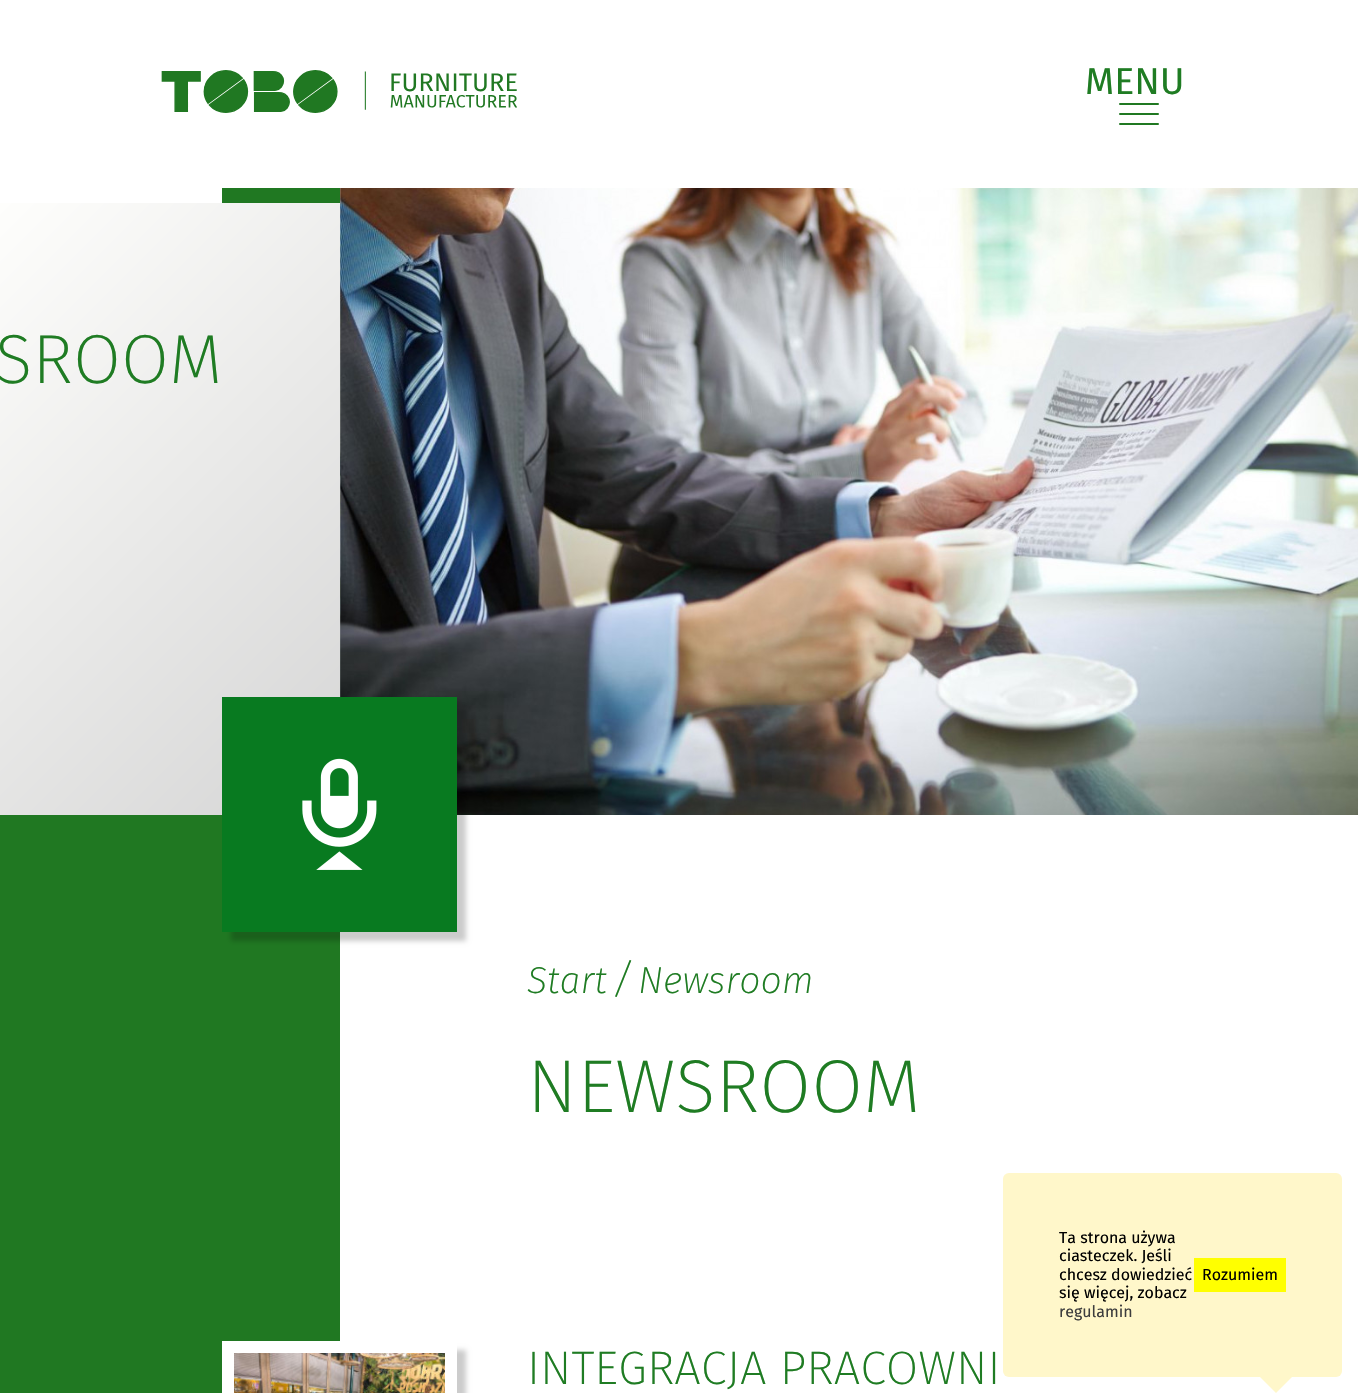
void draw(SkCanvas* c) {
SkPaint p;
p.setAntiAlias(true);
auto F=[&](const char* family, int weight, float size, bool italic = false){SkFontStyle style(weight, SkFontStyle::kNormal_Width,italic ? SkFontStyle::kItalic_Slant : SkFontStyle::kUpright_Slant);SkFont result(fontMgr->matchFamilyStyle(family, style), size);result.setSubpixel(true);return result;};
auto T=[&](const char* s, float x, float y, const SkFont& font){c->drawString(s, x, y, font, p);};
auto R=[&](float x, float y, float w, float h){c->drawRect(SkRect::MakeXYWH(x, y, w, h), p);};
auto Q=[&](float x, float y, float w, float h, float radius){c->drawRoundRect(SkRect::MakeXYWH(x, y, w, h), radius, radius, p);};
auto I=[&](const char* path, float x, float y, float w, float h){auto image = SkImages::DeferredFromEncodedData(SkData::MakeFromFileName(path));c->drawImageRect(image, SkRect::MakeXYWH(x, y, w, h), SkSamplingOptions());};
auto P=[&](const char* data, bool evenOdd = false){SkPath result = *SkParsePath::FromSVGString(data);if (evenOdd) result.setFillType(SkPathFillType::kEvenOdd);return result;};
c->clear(0xffffffff);
I("1.png",161,70,356,43);
auto f1 = F("Fira Sans",400,37.5);
p.setColor(0xff1f7c23);
T("MENU",1085,94,f1);
p.setColor(0xff207822);
Q(1119,103,40,2,1);
Q(1119,113,40,2,1);
Q(1119,123,40,2,1);
R(222,188,118,15);
{
const SkColor colors[] = {0xfffefefc,0xffd5d5d5};
const float stops[] = {0,1};
const SkPoint ends[] = {{-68,271}, {408,747}};
p.setShader(SkGradientShader::MakeLinear(ends, colors, stops, 2, SkTileMode::kClamp));
p.setAlpha(255);
}
R(0,203,340,612);
auto f2 = F("Fira Sans",300,69.5);
p.setShader(nullptr);
p.setColor(0xff1f7c23);
T("SROOM",-5,383,f2);
I("2.png",340,188,1018,627);
p.setColor(0xff207822);
R(0,815,340,578);
p.setColor(0x33000000);
p.setMaskFilter(SkMaskFilter::MakeBlur(kNormal_SkBlurStyle, 2.5));
c->drawRect(SkRect::MakeXYWH(231,706,235,235),p);
p.setMaskFilter(nullptr);
I("3.png",222,697,235,235);
auto f3 = F("Fira Sans",300,37.5,true);
p.setColor(0xff1f7c23);
T("Start",527,993,f3);
auto f4 = F("Fira Sans",300,41,true);
T("/",612,993,f4);
T("Newsroom",638,993,f3);
auto f5 = F("Fira Sans",300,75);
T("NEWSROOM",527,1112,f5);
p.setColor(0x33000000);
p.setMaskFilter(SkMaskFilter::MakeBlur(kNormal_SkBlurStyle, 2.5));
c->drawRect(SkRect::MakeXYWH(231,1350,235,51),p);
p.setMaskFilter(nullptr);
p.setStroke(true);
p.setStrokeWidth(12);
p.setColor(0xffffffff);
c->drawRect(SkRect::MakeXYWH(228,1347,223,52),p);
I("4.png",234,1353,211,40);
auto f6 = F("Fira Sans",300,47);
p.setStroke(false);
p.setColor(0xff1f7c23);
T("INTEGRACJA PRACOWNI",527,1384,f6);
p.setColor(0xfffff7ca);
Q(1003,1173,339,204,6);
auto f7 = F("Fira Sans",400,16);
p.setColor(0xff000000);
T("Ta strona używa",1059,1243,f7);
T("ciasteczek. Jeśli",1059,1261,f7);
T("chcesz dowiedzieć",1059,1280,f7);
T("się więcej, zobacz",1059,1298,f7);
p.setColor(0xff3d3d3d);
T("regulamin",1059,1317,f7);
p.setColor(0xffffff00);
R(1194,1258,92,34);
p.setColor(0xff000000);
T("Rozumiem",1202,1280,f7);
p.setColor(0xfffff7ca);
c->drawPath(P("M1260 1377h32l-16 16z"),p);
}
